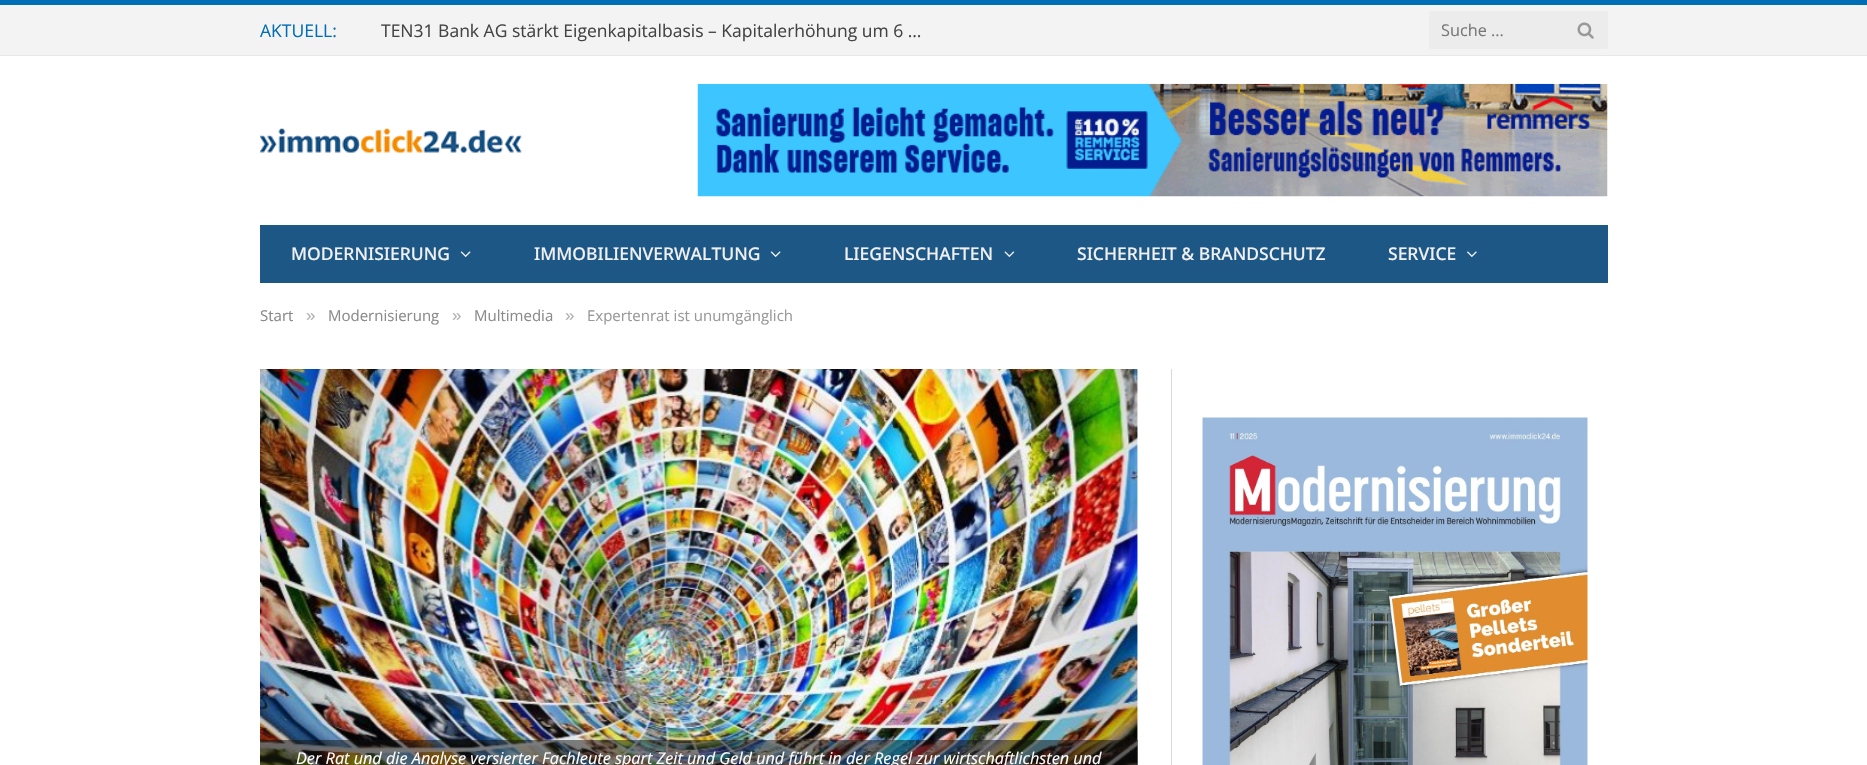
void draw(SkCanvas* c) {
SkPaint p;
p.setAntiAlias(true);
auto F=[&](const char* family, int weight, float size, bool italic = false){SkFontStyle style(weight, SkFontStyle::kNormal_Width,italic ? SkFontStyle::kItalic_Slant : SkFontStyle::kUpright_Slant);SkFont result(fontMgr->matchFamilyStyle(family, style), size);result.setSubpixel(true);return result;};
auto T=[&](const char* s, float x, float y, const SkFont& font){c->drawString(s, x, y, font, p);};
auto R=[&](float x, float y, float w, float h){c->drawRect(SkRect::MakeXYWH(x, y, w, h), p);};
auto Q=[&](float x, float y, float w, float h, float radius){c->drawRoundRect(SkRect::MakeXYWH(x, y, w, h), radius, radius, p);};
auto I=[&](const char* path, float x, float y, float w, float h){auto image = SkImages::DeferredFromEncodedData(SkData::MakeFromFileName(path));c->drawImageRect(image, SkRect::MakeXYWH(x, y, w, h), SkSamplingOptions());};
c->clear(0xffffffff);
p.setColor(0xfff3f3f3);
R(0,5,1867,50);
p.setColor(0xff006eb6);
R(0,0,1867,5);
p.setColor(0xffe8e8e8);
R(0,55,1867,1);
auto f1 = F("Open Sans",400,17.5);
p.setColor(0xff006eb6);
T("AKTUELL:",260,37,f1);
p.setColor(0xff444444);
T("TEN31 Bank AG stärkt Eigenkapitalbasis – Kapitalerhöhung um 6 …",381,37,f1);
p.setColor(0xffececec);
Q(1429,11,179,38,2.5);
auto f2 = F("Open Sans",400,16.25);
p.setColor(0xff777777);
T("Suche ...",1441,36,f2);
I("1.png",1577,22,17,17);
I("2.png",260,128,262,25);
I("3.png",697,83,911,114);
p.setColor(0xff1d5786);
R(260,225,1348,58);
auto f3 = F("Noto Sans",500,17.5);
p.setColor(0xfff0f0f0);
T("MODERNISIERUNG",291,260,f3);
I("4.png",460,251,11,6);
T("IMMOBILIENVERWALTUNG",534,260,f3);
I("4.png",770,251,11,6);
T("LIEGENSCHAFTEN",844,260,f3);
I("5.png",1004,251,11,6);
T("SICHERHEIT & BRANDSCHUTZ",1077,260,f3);
T("SERVICE",1388,260,f3);
I("6.png",1467,251,10,6);
auto f4 = F("Open Sans",400,15);
p.setColor(0xff8a8a8a);
T("Start",260,321,f4);
auto f5 = F("Liberation Sans",400,17);
p.setColor(0xffadadad);
T("»",306,321,f5);
p.setColor(0xff8a8a8a);
T("Modernisierung",328,321,f4);
p.setColor(0xffadadad);
T("»",452,321,f5);
p.setColor(0xff8a8a8a);
T("Multimedia",474,321,f4);
p.setColor(0xffadadad);
T("»",565,321,f5);
p.setColor(0xff999999);
T("Expertenrat ist unumgänglich",587,321,f4);
I("7.png",260,369,878,396);
p.setColor(0x80101010);
R(260,740,878,25);
auto f6 = F("Open Sans",400,16.25,true);
p.setColor(0xffffffff);
T("Der Rat und die Analyse versierter Fachleute spart Zeit und Geld und führt in der Regel zur wirtschaftlichsten und",296,764,f6);
p.setColor(0xffd9d9d9);
R(1171,369,1,396);
I("8.png",1202,417,386,348);
}
